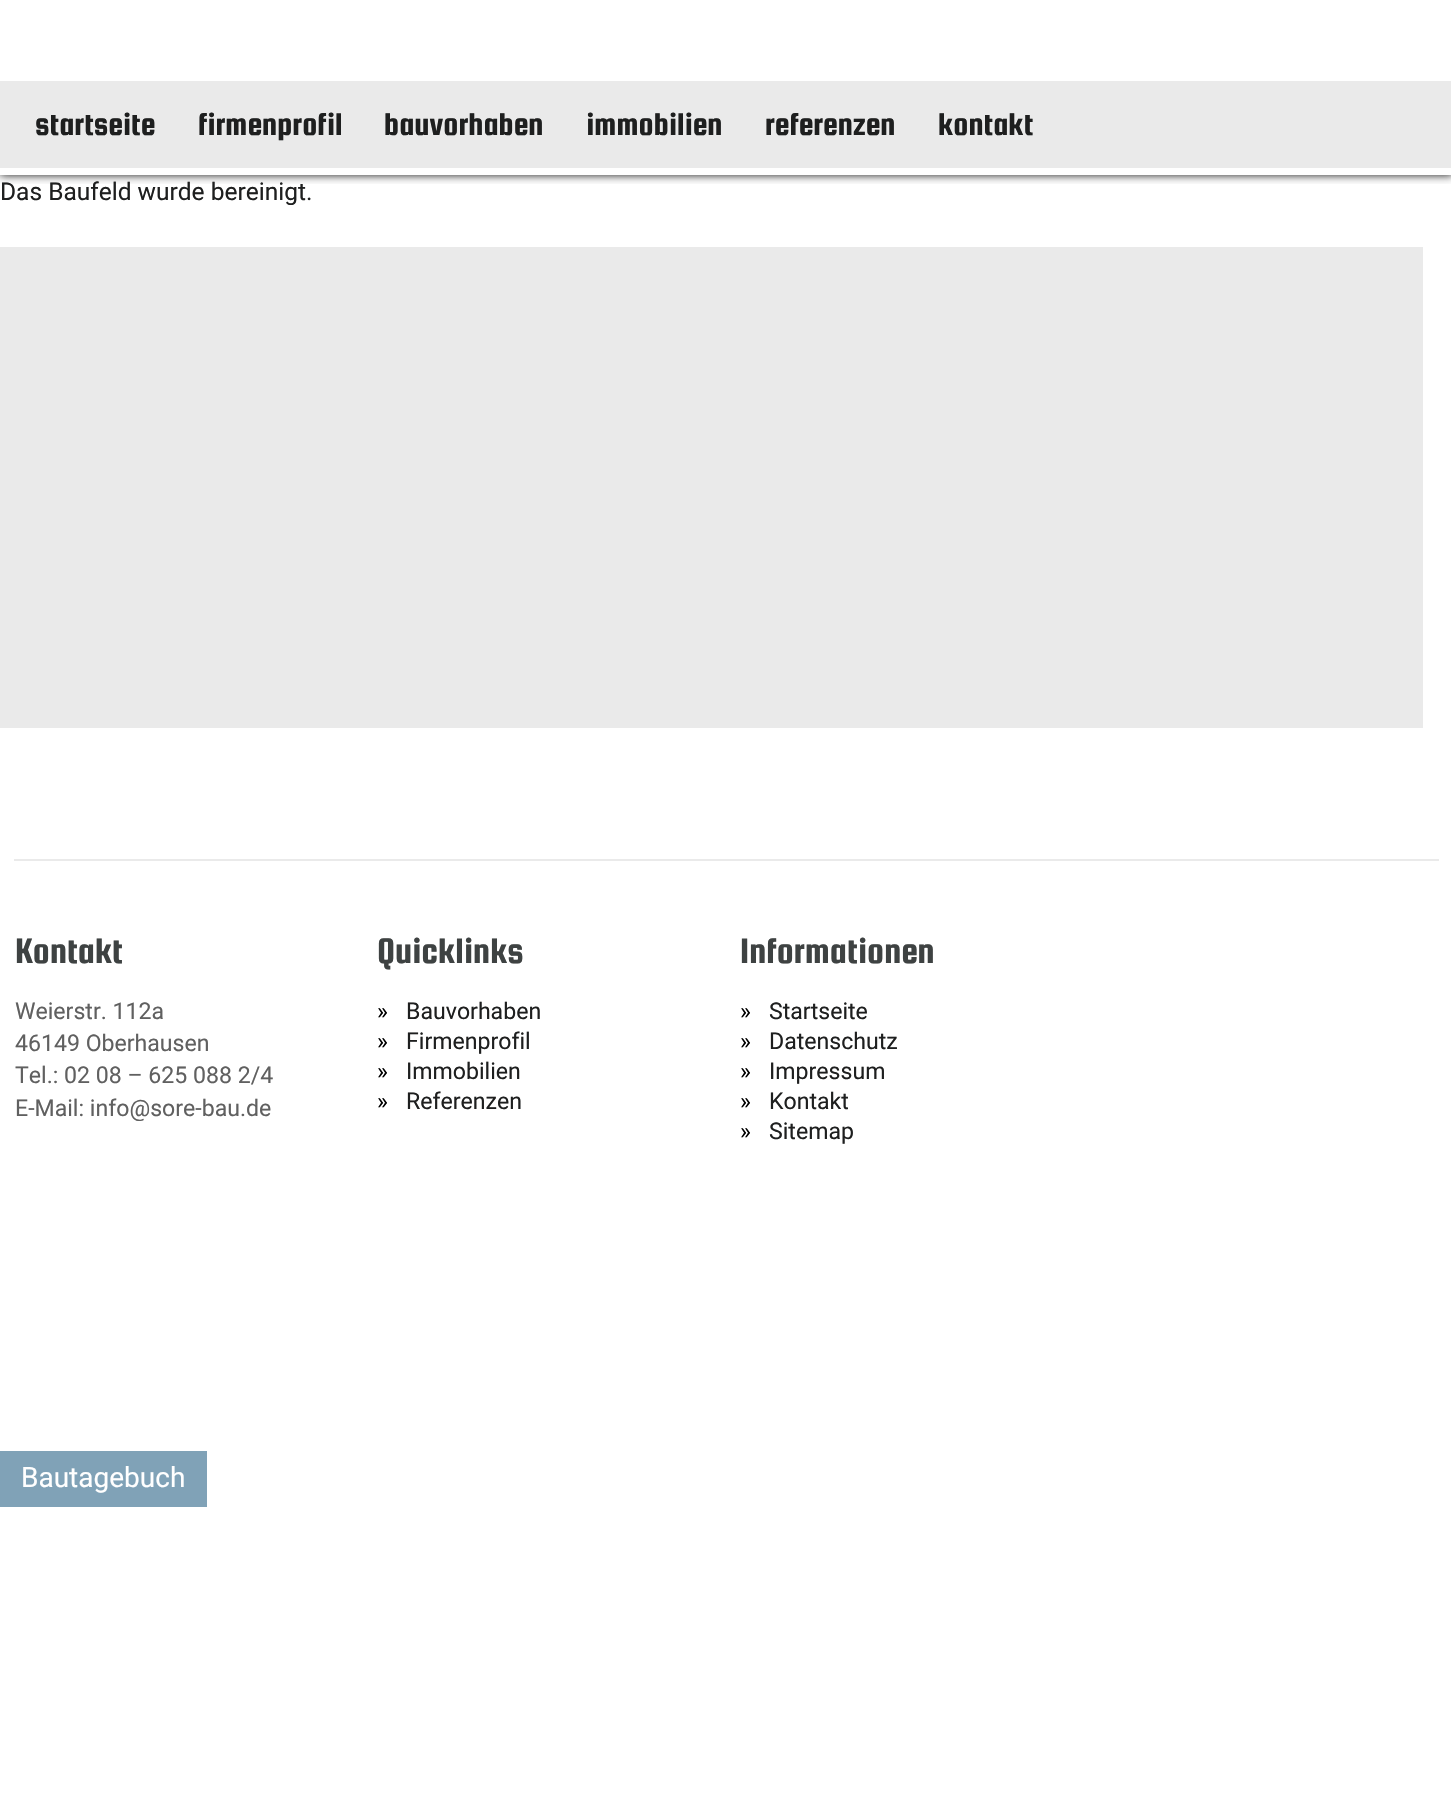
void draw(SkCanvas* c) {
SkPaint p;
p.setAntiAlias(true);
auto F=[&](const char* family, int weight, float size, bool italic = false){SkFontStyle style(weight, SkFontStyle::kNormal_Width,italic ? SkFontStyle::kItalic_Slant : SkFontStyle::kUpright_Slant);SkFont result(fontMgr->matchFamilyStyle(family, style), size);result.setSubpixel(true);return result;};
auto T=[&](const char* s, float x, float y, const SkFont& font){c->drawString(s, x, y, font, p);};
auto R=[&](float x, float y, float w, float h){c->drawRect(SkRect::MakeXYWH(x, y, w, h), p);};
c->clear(0xffffffff);
c->save();
c->clipRect(SkRect::MakeXYWH(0,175,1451,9));
p.setColor(0xff111111);
p.setMaskFilter(SkMaskFilter::MakeBlur(kNormal_SkBlurStyle, 4.5));
c->drawRect(SkRect::MakeXYWH(0,0,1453,175),p);
p.setMaskFilter(nullptr);
c->restore();
p.setColor(0xffeaeaea);
R(0,81,1451,87);
auto f1 = F("Squada One",400,33.5);
p.setColor(0xff1e1f1f);
T("startseite",35,135,f1);
T("firmenprofil",198,135,f1);
T("bauvorhaben",384,135,f1);
T("immobilien",586,135,f1);
T("referenzen",765,135,f1);
T("kontakt",938,135,f1);
auto f2 = F("Roboto",400,24.5);
T("Das Baufeld wurde bereinigt.",0,200,f2);
p.setColor(0xffeaeaea);
R(0,247,1423,481);
R(14,859,1425,2);
auto f3 = F("Squada One",400,37.75);
p.setColor(0xff3e4242);
T("Kontakt",15,963,f3);
auto f4 = F("Roboto",400,23.1);
p.setColor(0xff606060);
T("Weierstr. 112a",15,1019,f4);
T("46149 Oberhausen",15,1051,f4);
T("Tel.: 02 08 – 625 088 2/4",15,1083,f4);
T("E-Mail: info@sore-bau.de",15,1116,f4);
p.setColor(0xff3e4242);
T("Quicklinks",377,963,f3);
p.setColor(0xff000000);
T("»",377,1019,f4);
p.setColor(0xff1e1f1f);
T("Bauvorhaben",406,1019,f4);
p.setColor(0xff000000);
T("»",377,1049,f4);
p.setColor(0xff1e1f1f);
T("Firmenprofil",406,1049,f4);
p.setColor(0xff000000);
T("»",377,1079,f4);
p.setColor(0xff1e1f1f);
T("Immobilien",406,1079,f4);
p.setColor(0xff000000);
T("»",377,1109,f4);
p.setColor(0xff1e1f1f);
T("Referenzen",406,1109,f4);
p.setColor(0xff3e4242);
T("Informationen",740,963,f3);
p.setColor(0xff000000);
T("»",740,1019,f4);
p.setColor(0xff1e1f1f);
T("Startseite",769,1019,f4);
p.setColor(0xff000000);
T("»",740,1049,f4);
p.setColor(0xff1e1f1f);
T("Datenschutz",769,1049,f4);
p.setColor(0xff000000);
T("»",740,1079,f4);
p.setColor(0xff1e1f1f);
T("Impressum",769,1079,f4);
p.setColor(0xff000000);
T("»",740,1109,f4);
p.setColor(0xff1e1f1f);
T("Kontakt",769,1109,f4);
p.setColor(0xff000000);
T("»",740,1139,f4);
p.setColor(0xff1e1f1f);
T("Sitemap",769,1139,f4);
p.setColor(0xff80a2b7);
R(0,1451,207,56);
auto f5 = F("Roboto",400,28);
p.setColor(0xffffffff);
T("Bautagebuch",21,1487,f5);
}
